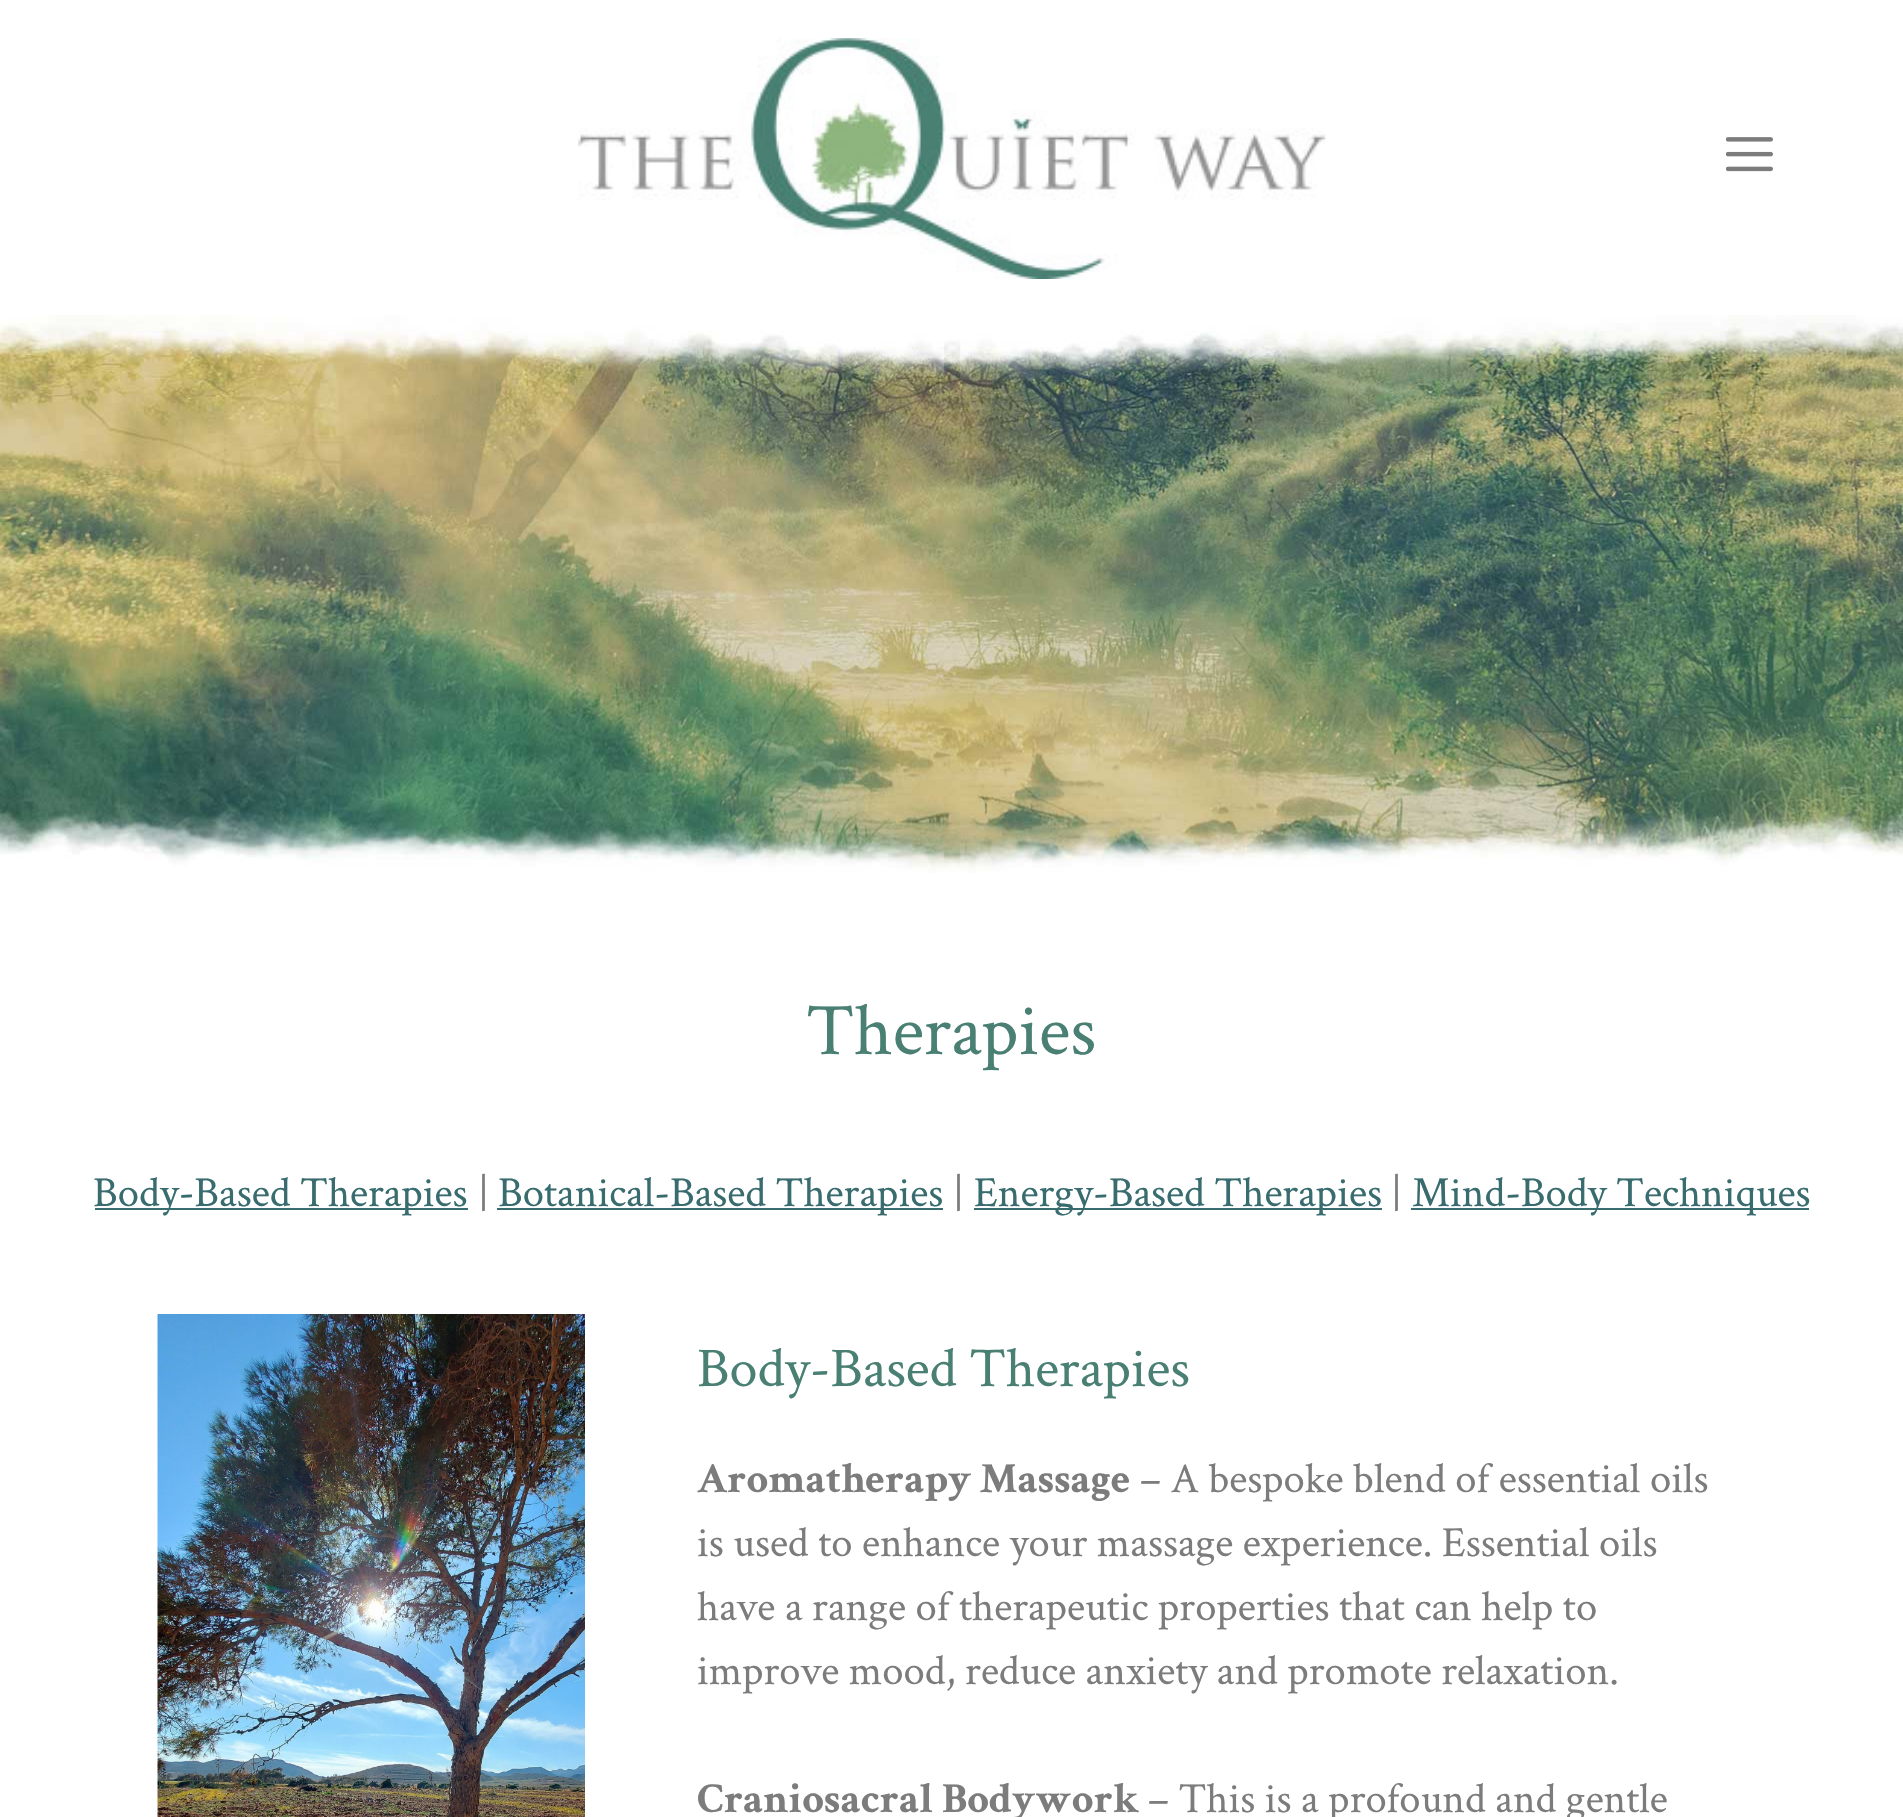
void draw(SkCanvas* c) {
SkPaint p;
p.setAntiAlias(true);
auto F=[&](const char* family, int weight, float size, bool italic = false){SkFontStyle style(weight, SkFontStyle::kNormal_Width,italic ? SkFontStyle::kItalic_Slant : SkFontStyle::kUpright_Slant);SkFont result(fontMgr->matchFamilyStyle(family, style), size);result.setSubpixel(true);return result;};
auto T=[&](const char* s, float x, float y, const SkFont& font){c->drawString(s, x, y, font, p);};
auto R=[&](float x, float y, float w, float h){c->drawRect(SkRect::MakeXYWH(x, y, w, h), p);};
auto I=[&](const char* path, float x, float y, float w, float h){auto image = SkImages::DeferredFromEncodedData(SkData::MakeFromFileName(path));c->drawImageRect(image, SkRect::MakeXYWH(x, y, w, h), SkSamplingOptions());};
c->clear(0xffffffff);
I("1.png",578,38,748,241);
I("2.png",1726,137,47,35);
I("3.png",0,315,1903,558);
auto f1 = F("Crimson Text",400,74);
p.setColor(0xff498073);
T("Therapies",806,1054,f1);
p.setColor(0xff396c6f);
R(95,1208,373,2);
auto f2 = F("Crimson Text",400,42.75);
T("Body-Based Therapies",93,1206,f2);
p.setColor(0xff7c7c7c);
T("|",478,1206,f2);
p.setColor(0xff396c6f);
R(497,1208,446,2);
T("Botanical-Based Therapies",498,1206,f2);
p.setColor(0xff7c7c7c);
T("|",953,1206,f2);
p.setColor(0xff396c6f);
R(974,1208,408,2);
T("Energy-Based Therapies",974,1206,f2);
p.setColor(0xff7c7c7c);
T("|",1391,1206,f2);
p.setColor(0xff396c6f);
R(1411,1208,398,2);
T("Mind-Body Techniques",1412,1206,f2);
I("4.png",157,1314,428,503);
auto f3 = F("Crimson Text",400,56.25);
p.setColor(0xff498073);
T("Body-Based Therapies",697,1386,f3);
auto f4 = F("Crimson Text",700,42.75);
p.setColor(0xff7c7c7c);
T("Aromatherapy Massage",697,1492,f4);
T("– A bespoke blend of essential oils",1140,1492,f2);
T("is used to enhance your massage experience. Essential oils",697,1556,f2);
T("have a range of therapeutic properties that can help to",697,1620,f2);
T("improve mood, reduce anxiety and promote relaxation.",697,1684,f2);
T("Craniosacral Bodywork",697,1812,f4);
T("– This is a profound and gentle",1148,1812,f2);
}
